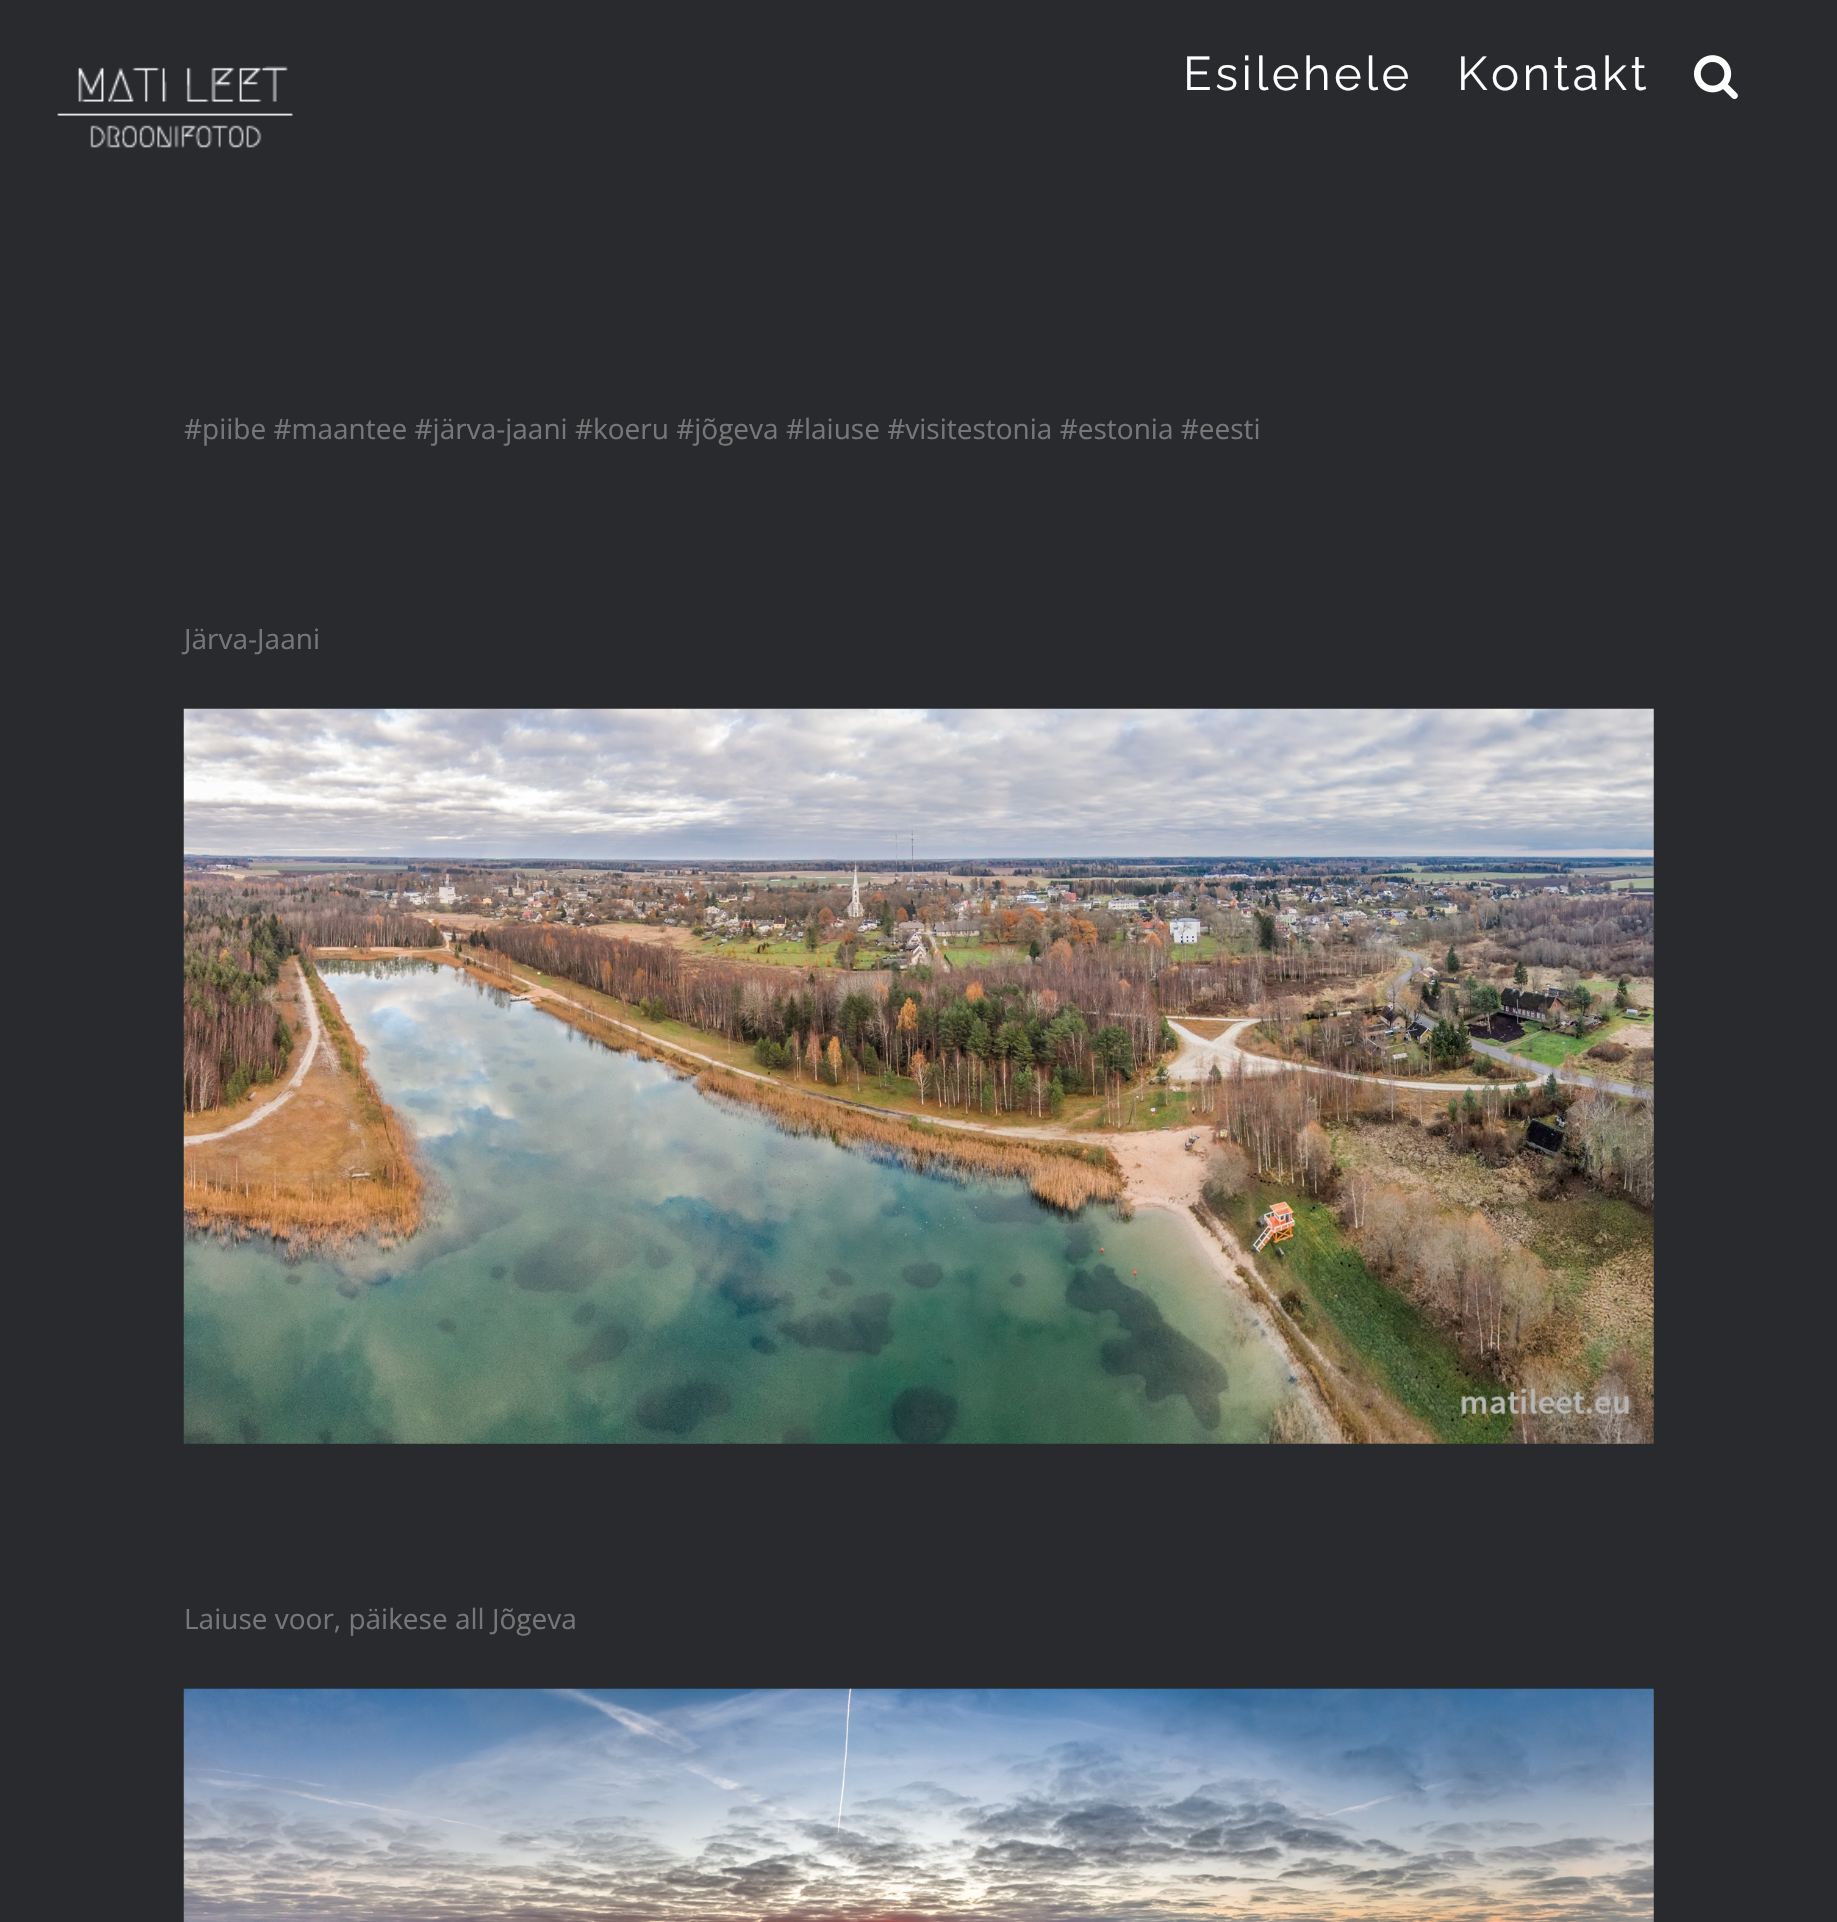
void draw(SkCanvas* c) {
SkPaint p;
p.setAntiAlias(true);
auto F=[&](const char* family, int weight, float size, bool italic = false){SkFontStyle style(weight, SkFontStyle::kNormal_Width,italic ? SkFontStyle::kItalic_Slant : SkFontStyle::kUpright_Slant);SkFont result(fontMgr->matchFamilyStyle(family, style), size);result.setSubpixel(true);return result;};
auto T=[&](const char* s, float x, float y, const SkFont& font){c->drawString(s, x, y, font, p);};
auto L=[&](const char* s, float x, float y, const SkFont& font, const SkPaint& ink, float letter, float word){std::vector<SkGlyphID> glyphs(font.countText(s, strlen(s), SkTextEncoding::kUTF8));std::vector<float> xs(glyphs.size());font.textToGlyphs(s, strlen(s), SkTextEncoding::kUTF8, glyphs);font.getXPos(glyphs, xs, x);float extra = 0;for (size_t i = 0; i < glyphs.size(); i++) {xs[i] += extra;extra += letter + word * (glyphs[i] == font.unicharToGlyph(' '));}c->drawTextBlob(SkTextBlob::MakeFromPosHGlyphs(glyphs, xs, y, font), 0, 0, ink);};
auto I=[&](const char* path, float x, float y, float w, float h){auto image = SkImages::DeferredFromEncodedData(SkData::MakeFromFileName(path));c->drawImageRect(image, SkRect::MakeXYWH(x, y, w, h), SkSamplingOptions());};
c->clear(0xff282a2d);
I("1.png",57,66,236,82);
auto f1 = F("Raleway",400,47.25);
p.setColor(0xffffffff);
L("Esilehele",1183,90,f1,p,3.5,0);
L("Kontakt",1457,90,f1,p,3.5,0);
I("2.png",1694,55,44,45);
auto f2 = F("Open Sans",400,28);
p.setColor(0xff777777);
T("#piibe #maantee #järva-jaani #koeru #jõgeva #laiuse #visitestonia #estonia #eesti",184,439,f2);
T("Järva-Jaani",184,649,f2);
I("3.png",183,708,1471,736);
T("Laiuse voor, päikese all Jõgeva",184,1629,f2);
I("4.png",183,1688,1471,234);
}
